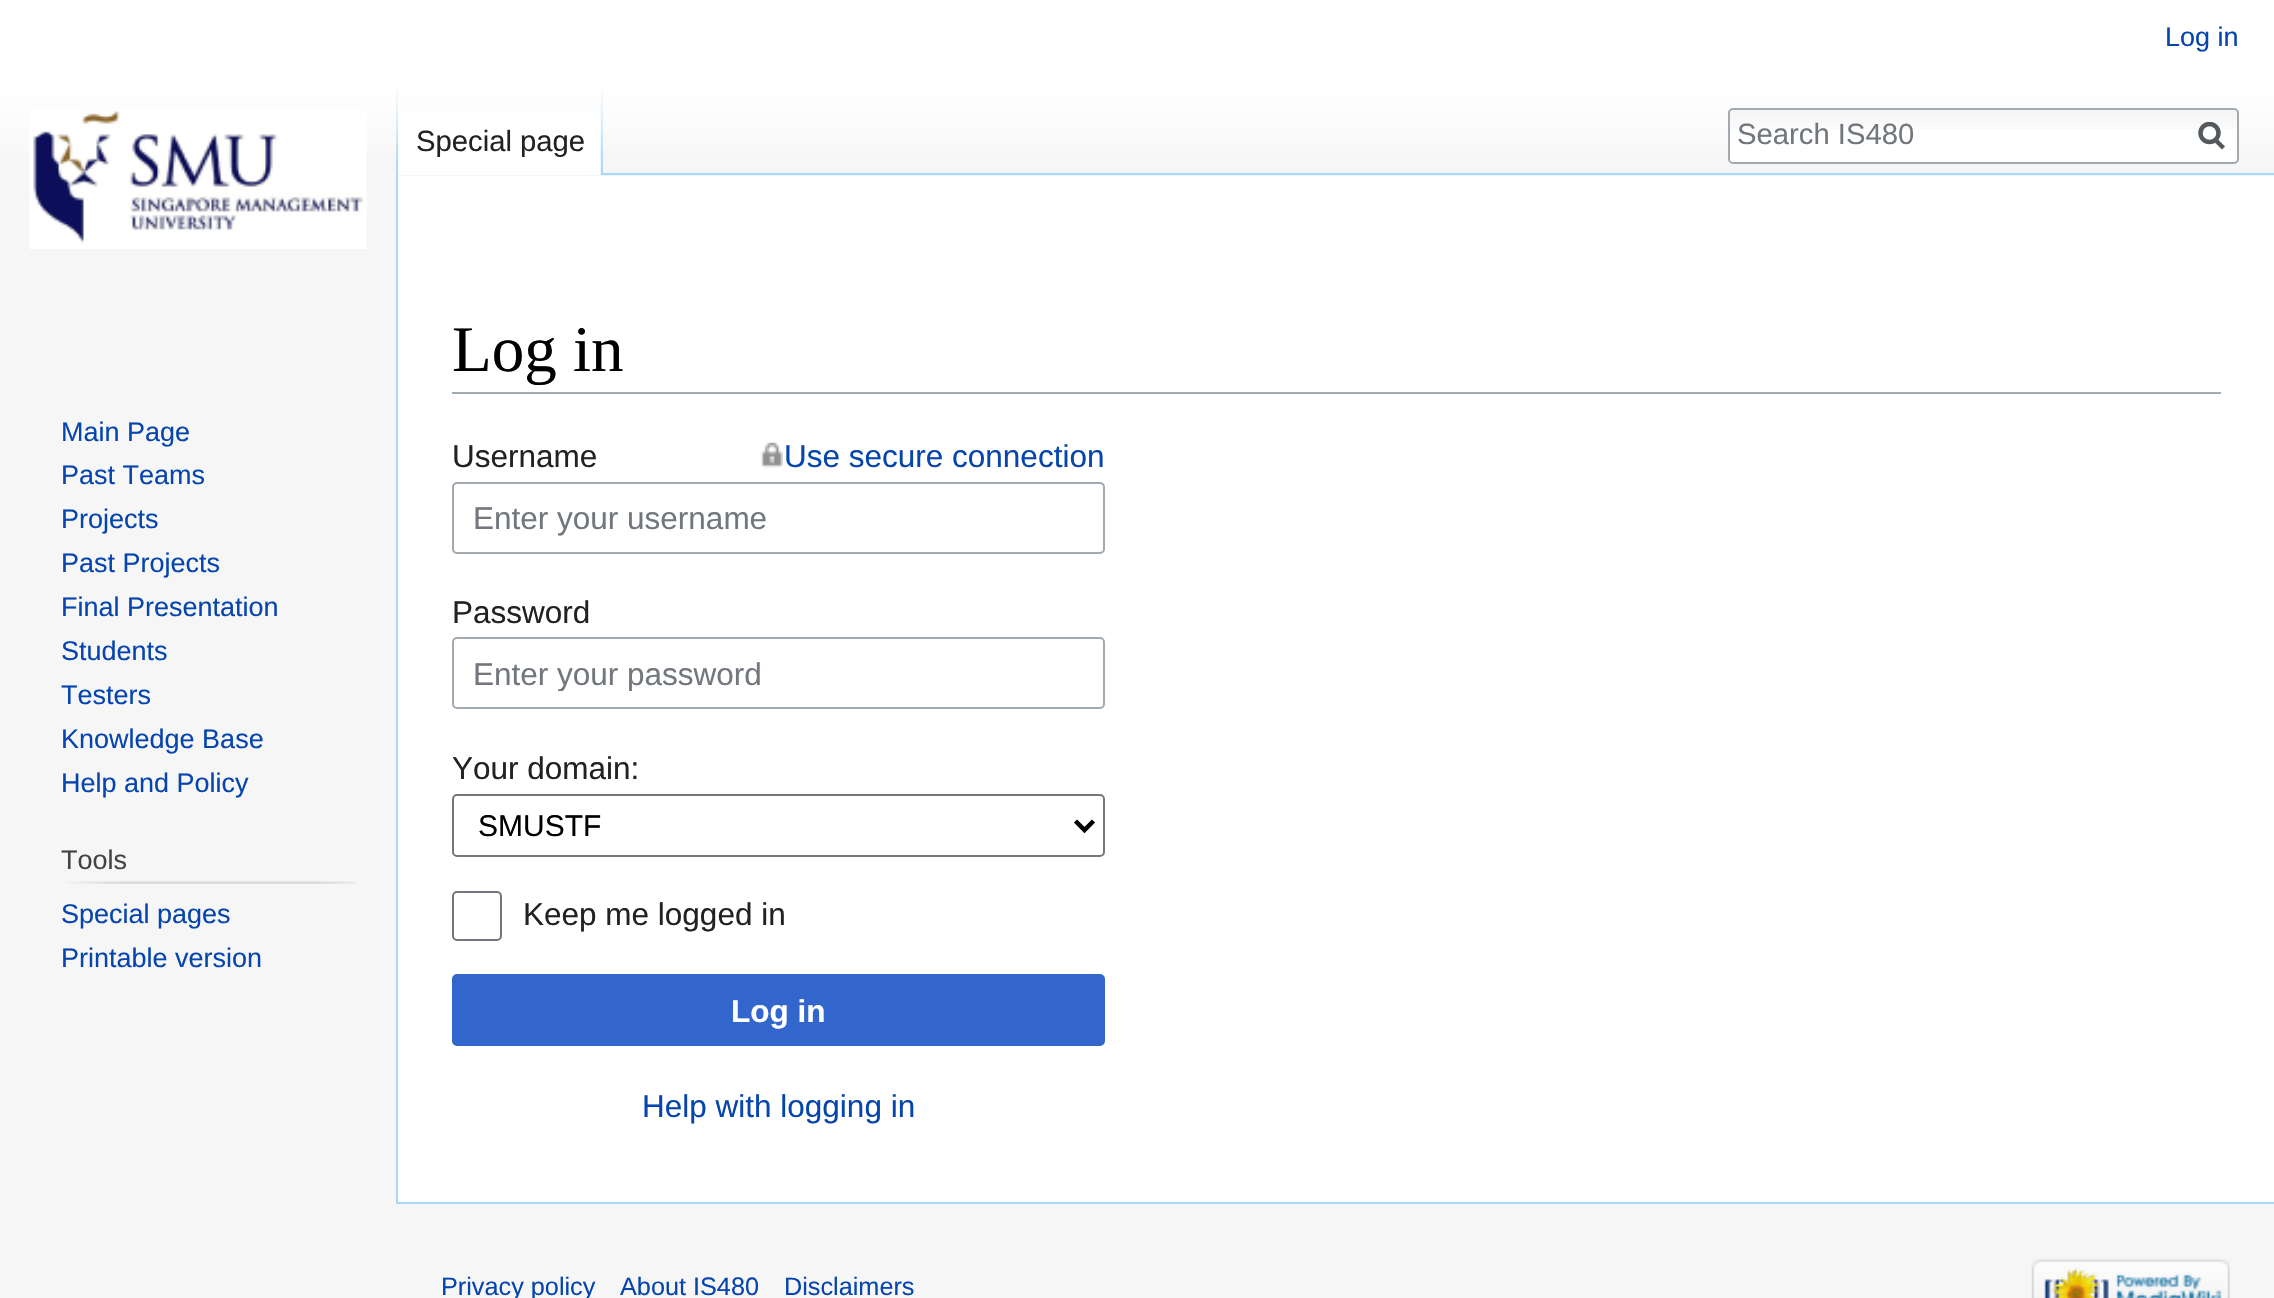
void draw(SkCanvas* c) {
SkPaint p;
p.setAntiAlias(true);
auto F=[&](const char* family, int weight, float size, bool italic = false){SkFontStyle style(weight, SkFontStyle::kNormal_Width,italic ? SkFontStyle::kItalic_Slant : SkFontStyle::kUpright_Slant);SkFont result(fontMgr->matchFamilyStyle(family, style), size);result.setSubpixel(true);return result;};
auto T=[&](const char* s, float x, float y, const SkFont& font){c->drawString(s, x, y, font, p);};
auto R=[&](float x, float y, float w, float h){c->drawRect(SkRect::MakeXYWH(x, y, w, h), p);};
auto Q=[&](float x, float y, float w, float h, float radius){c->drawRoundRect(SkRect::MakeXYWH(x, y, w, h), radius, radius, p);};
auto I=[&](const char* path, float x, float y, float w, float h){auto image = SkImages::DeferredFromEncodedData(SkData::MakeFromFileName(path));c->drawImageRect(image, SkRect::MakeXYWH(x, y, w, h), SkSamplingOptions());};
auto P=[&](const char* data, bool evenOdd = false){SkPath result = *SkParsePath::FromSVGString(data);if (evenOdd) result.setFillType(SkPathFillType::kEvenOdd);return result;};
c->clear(0xfff6f6f6);
{
const SkColor colors[] = {0xffffffff,0xfff6f6f6};
const float stops[] = {.5,1};
const SkPoint ends[] = {{1137,-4.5}, {1137,176}};
p.setShader(SkGradientShader::MakeLinear(ends, colors, stops, 2, SkTileMode::kClamp));
p.setAlpha(255);
}
R(0,0,2274,151);
auto f1 = F("Liberation Sans",400,27);
p.setShader(nullptr);
p.setColor(0xff0645ad);
T("Log in",2165,46,f1);
I("1.png",396,85,2,88);
p.setColor(0xffffffff);
R(398,111,203,64);
I("2.png",600,85,3,90);
auto f2 = F("Liberation Sans",400,29.25);
p.setColor(0xff222222);
T("Special page",416,151,f2);
p.setColor(0xffffffff);
Q(1728,108,511,56,5);
I("3.png",1728,110,511,19);
p.setStroke(true);
p.setStrokeWidth(2);
p.setColor(0xffa2a9b1);
c->drawRoundRect(SkRect::MakeXYWH(1729,109,509,54),4,4,p);
p.setStroke(false);
p.setColor(0xff72777d);
T("Search IS480",1737,144,f2);
p.setStroke(true);
p.setStrokeWidth(4.5);
p.setColor(0xff54595d);
c->drawPath(P("M2223.5 148l-9-9"),p);
c->save();
c->clipRect(SkRect::MakeXYWH(2198,122,27,29));
c->drawCircle(2209.5,133,9,p);
c->restore();
I("4.png",29,110,338,139);
p.setStroke(false);
p.setColor(0xff0645ad);
T("Main Page",61,441,f1);
T("Past Teams",61,484,f1);
T("Projects",61,528,f1);
T("Past Projects",61,572,f1);
T("Final Presentation",61,616,f1);
T("Students",61,660,f1);
T("Testers",61,704,f1);
T("Knowledge Base",61,748,f1);
T("Help and Policy",61,792,f1);
p.setColor(0xff444444);
T("Tools",61,869,f1);
I("5.png",67,881,289,3);
p.setColor(0xff0645ad);
T("Special pages",61,923,f1);
T("Printable version",61,967,f1);
p.setColor(0xffffffff);
R(398,176,1876,1026);
p.setColor(0xffa7d7f9);
R(603,173,1671,2);
R(396,1202,1878,2);
R(396,173,2,1031);
p.setColor(0xffa2a9b1);
R(452,392,1769,2);
auto f3 = F("Liberation Serif",400,65);
p.setColor(0xff000000);
T("Log in",452,371,f3);
auto f4 = F("Liberation Sans",400,31.5);
p.setColor(0xff222222);
T("Username",452,467,f4);
I("6.png",760,442,23,26);
p.setColor(0xff0645ad);
T("Use secure connection",784,467,f4);
p.setStroke(true);
p.setStrokeWidth(2);
p.setColor(0xffa2a9b1);
c->drawRoundRect(SkRect::MakeXYWH(453,483,651,70),4,4,p);
p.setStroke(false);
p.setColor(0xff72777d);
T("Enter your username",473,529,f4);
p.setColor(0xff222222);
T("Password",452,623,f4);
p.setStroke(true);
p.setColor(0xffa2a9b1);
c->drawRoundRect(SkRect::MakeXYWH(453,638,651,70),4,4,p);
c->save();
c->clipRect(SkRect::MakeXYWH(473,655,612,36));
p.setStroke(false);
p.setColor(0xff72777d);
T("Enter your password",473,685,f4);
c->restore();
p.setColor(0xff222222);
T("Your domain:",452,779,f4);
p.setStroke(true);
p.setColor(0xff767676);
c->drawRoundRect(SkRect::MakeXYWH(453,795,651,61),4,4,p);
p.setStrokeWidth(4.5);
p.setColor(0xff000000);
c->drawPath(P("M1075.5 821l9 9l9-9"),p);
auto f5 = F("Liberation Sans",400,30);
p.setStroke(false);
T("SMUSTF",478,836,f5);
p.setStroke(true);
p.setStrokeWidth(2);
p.setColor(0xff72777d);
c->drawRoundRect(SkRect::MakeXYWH(453,892,48,48),4,4,p);
p.setStroke(false);
p.setColor(0xff222222);
T("Keep me logged in",523,925,f4);
p.setColor(0xff3366cc);
c->drawRoundRect(SkRect::MakeXYWH(453,975,651,70),4,4,p);
p.setStroke(true);
c->drawRoundRect(SkRect::MakeXYWH(453,975,651,70),4,4,p);
auto f6 = F("Liberation Sans",700,31.5);
p.setStroke(false);
p.setColor(0xffffffff);
T("Log in",731,1022,f6);
p.setColor(0xff0645ad);
T("Help with logging in",642,1117,f4);
auto f7 = F("Liberation Sans",400,25.25);
T("Privacy policy",441,1295,f7);
T("About IS480",620,1295,f7);
T("Disclaimers",784,1295,f7);
I("7.png",2031,1259,199,39);
}
